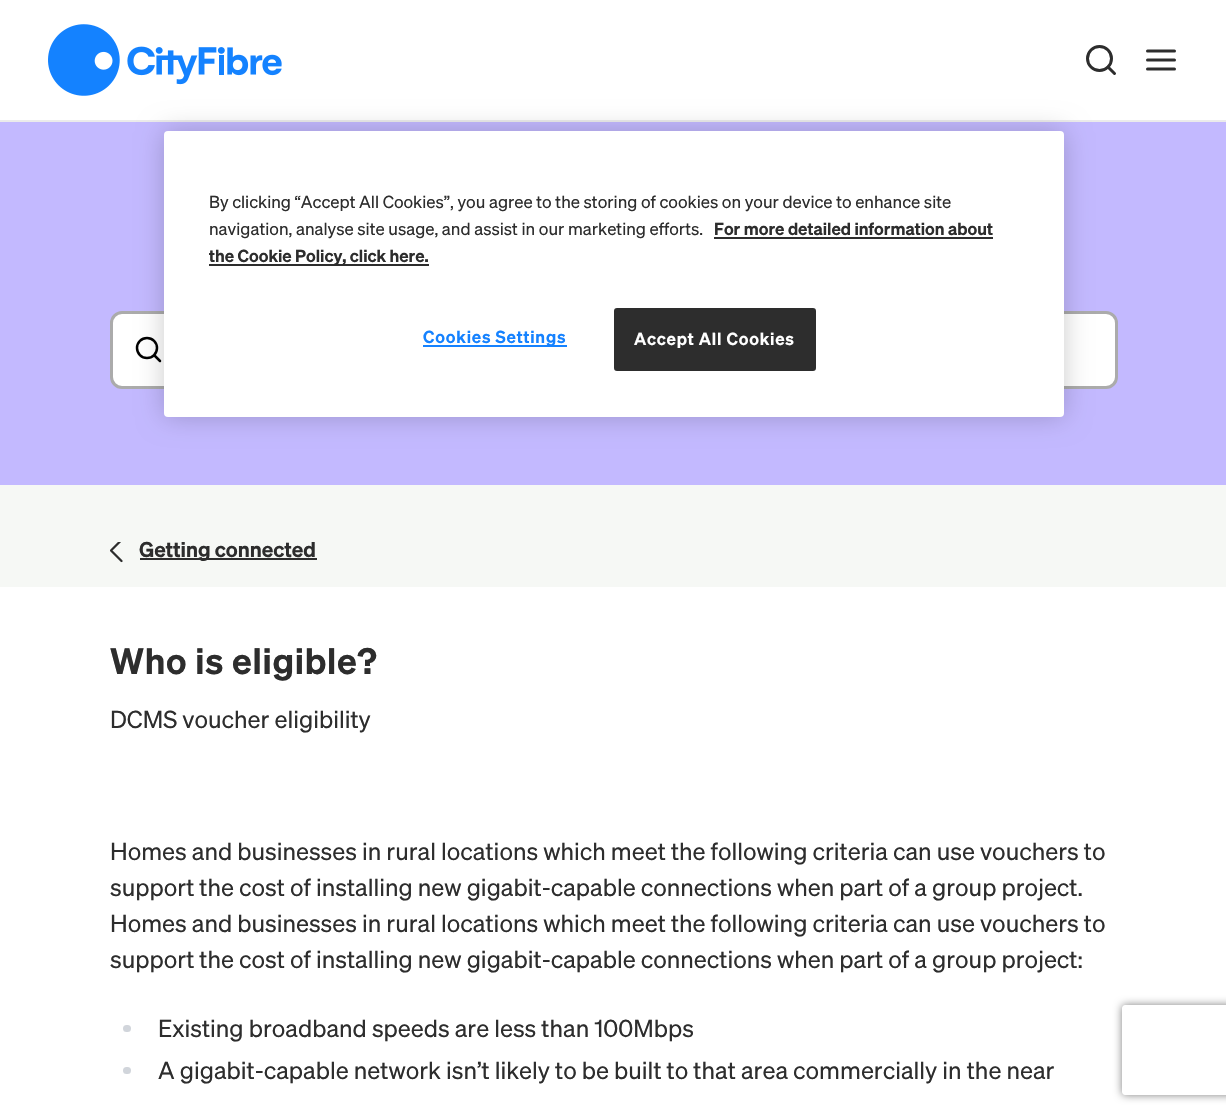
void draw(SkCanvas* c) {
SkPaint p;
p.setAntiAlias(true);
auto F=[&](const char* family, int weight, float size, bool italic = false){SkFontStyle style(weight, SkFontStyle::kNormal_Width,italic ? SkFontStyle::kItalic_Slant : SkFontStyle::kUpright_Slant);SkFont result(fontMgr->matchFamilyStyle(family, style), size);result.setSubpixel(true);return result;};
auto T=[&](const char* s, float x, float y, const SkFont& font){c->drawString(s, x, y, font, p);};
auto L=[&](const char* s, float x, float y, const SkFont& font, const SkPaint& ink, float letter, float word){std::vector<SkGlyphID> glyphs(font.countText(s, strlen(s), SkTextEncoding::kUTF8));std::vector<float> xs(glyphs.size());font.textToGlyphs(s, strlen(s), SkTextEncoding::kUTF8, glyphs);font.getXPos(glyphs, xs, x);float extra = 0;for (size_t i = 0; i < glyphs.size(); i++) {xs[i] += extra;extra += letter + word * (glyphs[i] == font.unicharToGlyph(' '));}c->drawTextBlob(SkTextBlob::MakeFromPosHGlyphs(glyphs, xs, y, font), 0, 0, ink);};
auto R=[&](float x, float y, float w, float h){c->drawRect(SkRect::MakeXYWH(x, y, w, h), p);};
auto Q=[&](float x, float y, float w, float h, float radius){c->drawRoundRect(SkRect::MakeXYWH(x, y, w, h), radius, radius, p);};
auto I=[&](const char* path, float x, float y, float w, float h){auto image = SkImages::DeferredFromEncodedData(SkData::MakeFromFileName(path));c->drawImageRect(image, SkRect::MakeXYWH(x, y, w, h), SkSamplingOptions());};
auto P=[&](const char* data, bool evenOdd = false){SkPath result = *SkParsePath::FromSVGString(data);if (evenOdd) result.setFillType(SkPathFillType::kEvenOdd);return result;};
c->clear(0xffffffff);
I("1.png",48,24,234,72);
p.setStroke(true);
p.setStrokeWidth(3);
p.setColor(0xff2d2d2d);
c->drawCircle(1099.5,58.5,12,p);
p.setStrokeCap(SkPaint::kRound_Cap);
p.setStrokeJoin(SkPaint::kRound_Join);
c->drawPath(P("M1114.5 73.5l-6.5-6.5"),p);
c->drawPath(P("M1147.5 60h27m-27-9h27m-27 18h27"),p);
p.setStroke(false);
p.setColor(0xffebebeb);
R(0,120,1226,2);
p.setColor(0xffc3b9ff);
R(0,122,1226,363);
p.setColor(0xffffffff);
c->drawRoundRect(SkRect::MakeXYWH(111.5,312.5,1005,75),10.5,10.5,p);
p.setStroke(true);
p.setStrokeCap(SkPaint::kButt_Cap);
p.setStrokeJoin(SkPaint::kMiter_Join);
p.setColor(0xffababab);
c->drawRoundRect(SkRect::MakeXYWH(111.5,312.5,1005,75),10.5,10.5,p);
p.setStrokeWidth(2.5);
p.setColor(0xff000000);
c->drawCircle(147,348,10,p);
p.setStrokeCap(SkPaint::kRound_Cap);
p.setStrokeJoin(SkPaint::kRound_Join);
c->drawPath(P("M160 361l-5.5-5.5"),p);
p.setStroke(false);
p.setColor(0x33000000);
p.setMaskFilter(SkMaskFilter::MakeBlur(kNormal_SkBlurStyle, 13.5));
c->drawRoundRect(SkRect::MakeXYWH(164,131,900,286),4,4,p);
p.setMaskFilter(nullptr);
p.setColor(0xffffffff);
Q(164,131,900,286,4);
auto f1 = F("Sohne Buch",400,17.05);
p.setColor(0xff2d2d2d);
T("By clicking “Accept All Cookies”, you agree to the storing of cookies on your device to enhance site",209,208,f1);
T("navigation, analyse site usage, and assist in our marketing efforts.",209,235,f1);
auto f2 = F("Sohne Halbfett",600,17.05);
T("For more detailed information about",714,235,f2);
R(714,237,279,2);
R(209,264,220,2);
T("the Cookie Policy, click here.",209,262,f2);
p.setColor(0xff1582ff);
R(423,345,144,2);
L("Cookies Settings",423,343,f2,p,.8,0);
p.setColor(0xff2d2d2d);
c->drawRoundRect(SkRect::MakeXYWH(615,309,200,61),2,2,p);
p.setStroke(true);
p.setStrokeWidth(2);
p.setStrokeCap(SkPaint::kButt_Cap);
p.setStrokeJoin(SkPaint::kMiter_Join);
c->drawRoundRect(SkRect::MakeXYWH(615,309,200,61),2,2,p);
p.setStroke(false);
p.setColor(0xffffffff);
L("Accept All Cookies",634,345,f2,p,.8,0);
p.setColor(0xfff6f8f5);
R(0,485,1226,102);
I("2.png",110,542,13,21);
p.setColor(0xff2d2d2d);
R(140,558,177,2);
auto f3 = F("Sohne Halbfett",600,21);
T("Getting connected",139,557,f3);
auto f4 = F("Sohne Halbfett",600,36);
L("Who is eligible?",110,674,f4,p,.75,0);
auto f5 = F("Sohne Buch",400,24);
T("DCMS voucher eligibility",110,728,f5);
T("Homes and businesses in rural locations which meet the following criteria can use vouchers to",110,860,f5);
T("support the cost of installing new gigabit-capable connections when part of a group project.",110,896,f5);
T("Homes and businesses in rural locations which meet the following criteria can use vouchers to",110,932,f5);
T("support the cost of installing new gigabit-capable connections when part of a group project:",110,968,f5);
p.setColor(0xffd1d5db);
Q(123,1025,8,7,3.5);
p.setColor(0xff2d2d2d);
T("Existing broadband speeds are less than 100Mbps",158,1037,f5);
p.setColor(0xffd1d5db);
Q(123,1067,8,7,3.5);
p.setColor(0xff2d2d2d);
T("A gigabit-capable network isn’t likely to be built to that area commercially in the near",158,1079,f5);
c->save();
c->clipPath(P("M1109 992h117v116h-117zm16 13h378c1.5 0 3 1.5 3 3v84c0 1.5-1.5 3-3 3h-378c-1.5 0-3-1.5-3-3v-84c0-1.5 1.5-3 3-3z",true),true);
p.setColor(0xff808080);
p.setMaskFilter(SkMaskFilter::MakeBlur(kNormal_SkBlurStyle, 4));
c->drawRoundRect(SkRect::MakeXYWH(1122,1005,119,90),3,3,p);
p.setMaskFilter(nullptr);
c->restore();
}
